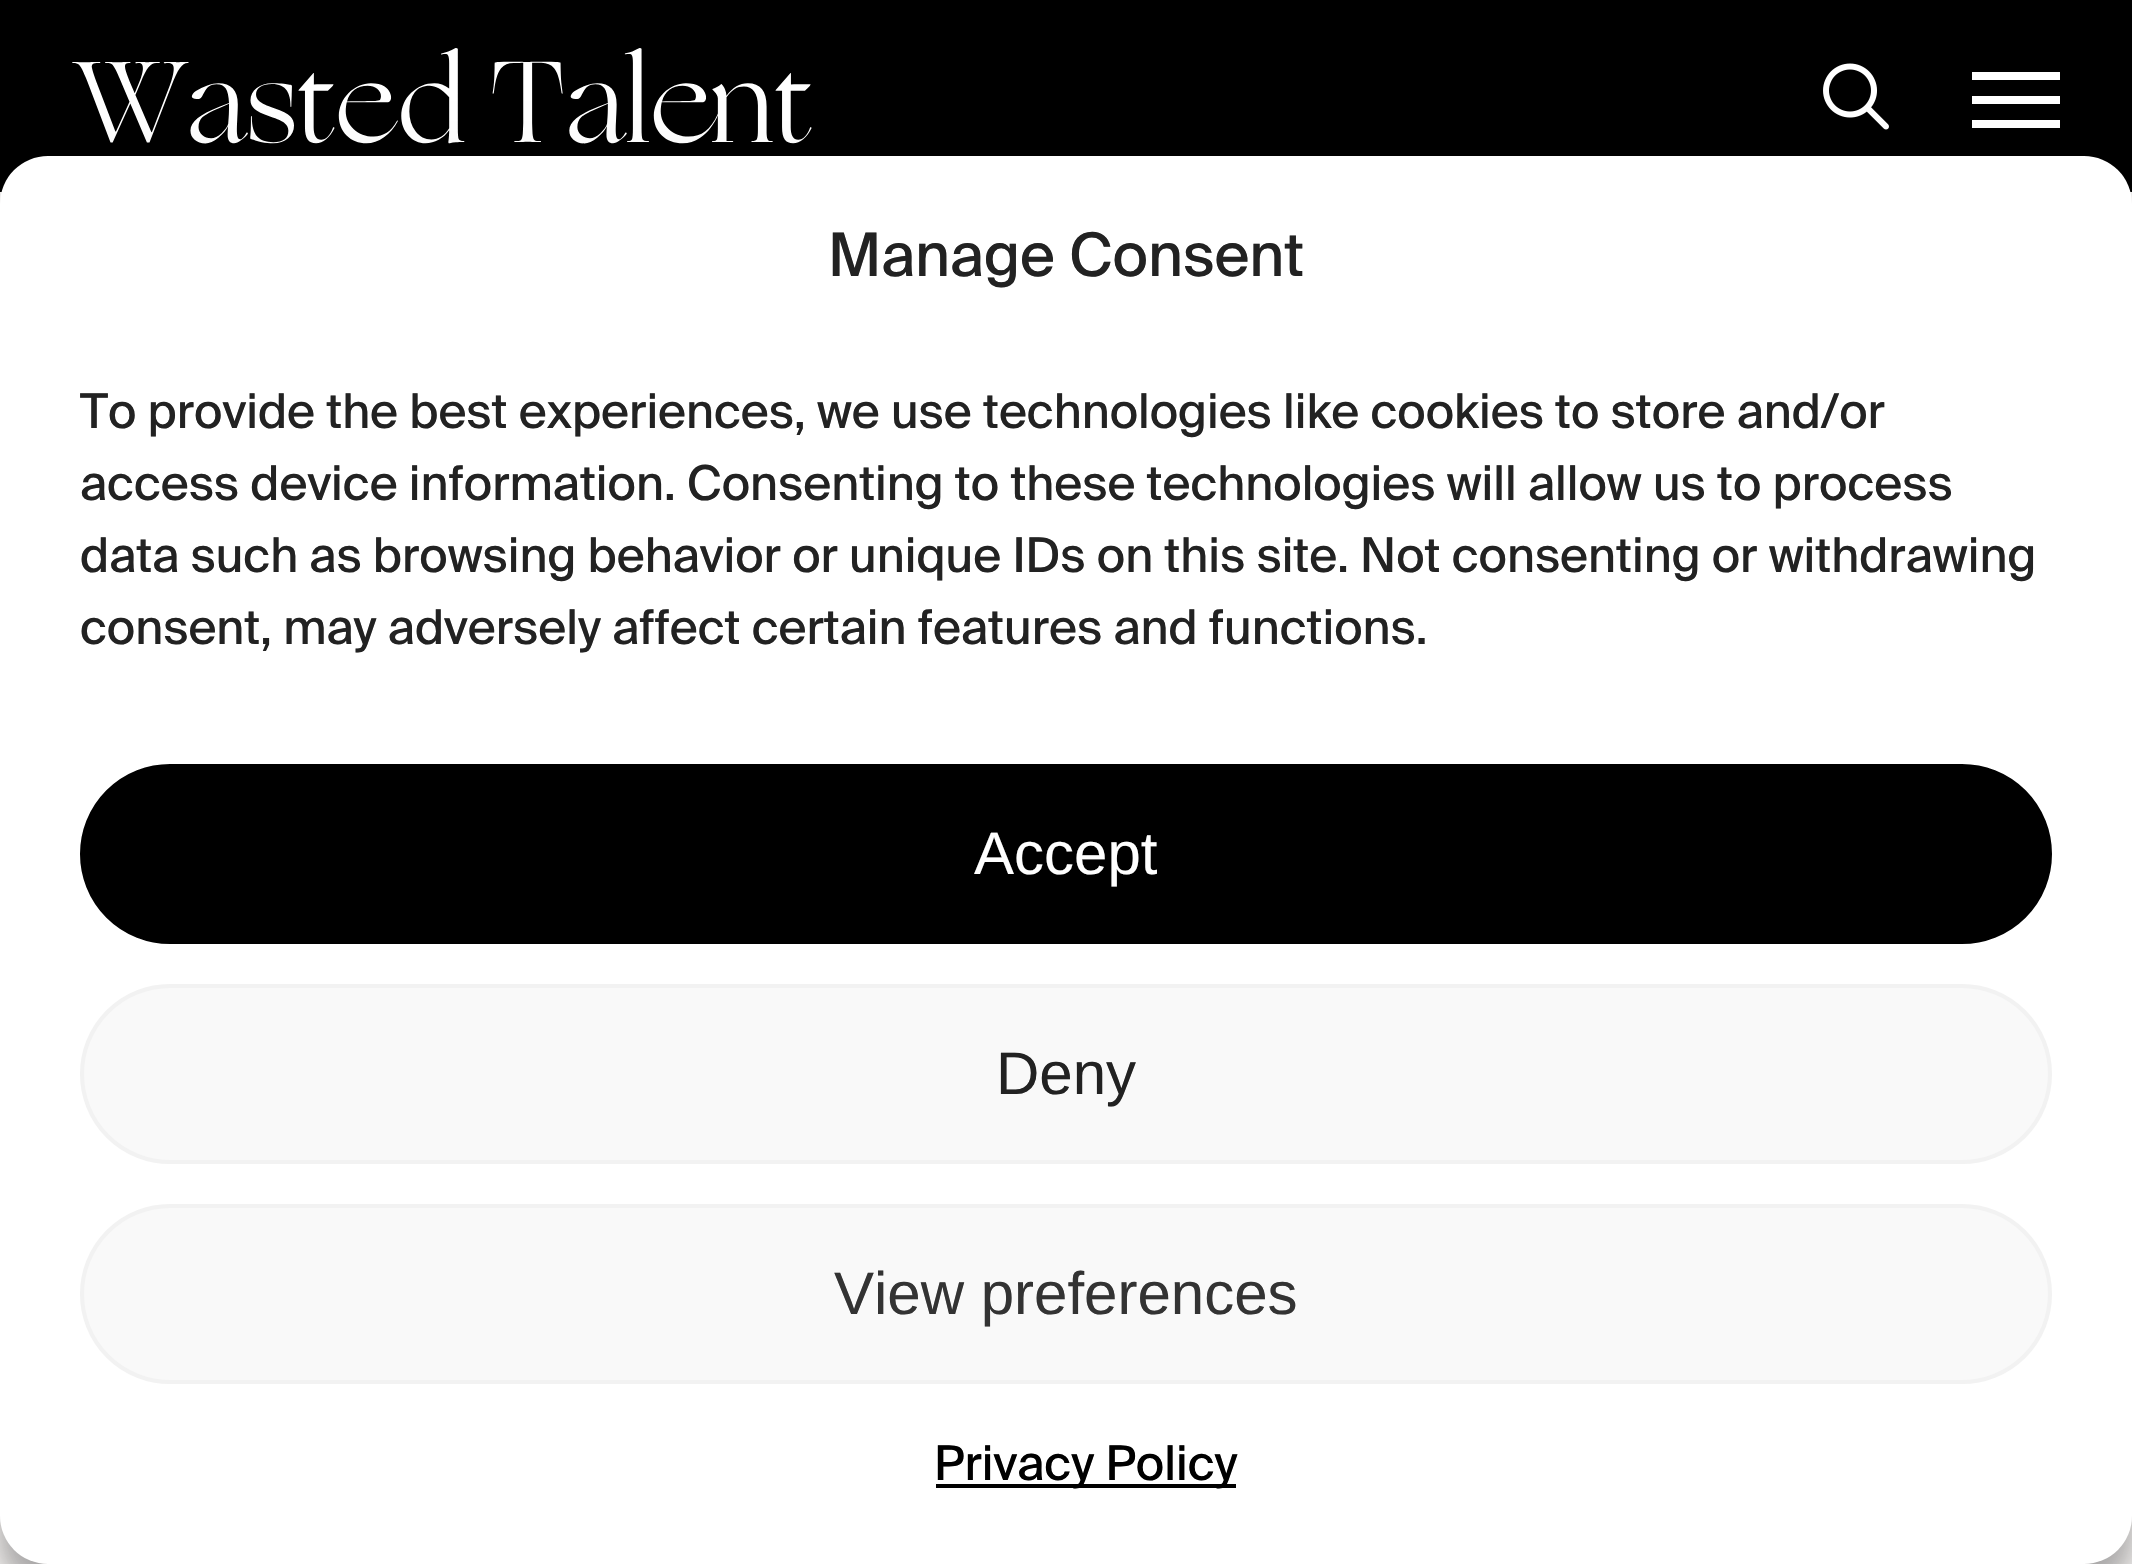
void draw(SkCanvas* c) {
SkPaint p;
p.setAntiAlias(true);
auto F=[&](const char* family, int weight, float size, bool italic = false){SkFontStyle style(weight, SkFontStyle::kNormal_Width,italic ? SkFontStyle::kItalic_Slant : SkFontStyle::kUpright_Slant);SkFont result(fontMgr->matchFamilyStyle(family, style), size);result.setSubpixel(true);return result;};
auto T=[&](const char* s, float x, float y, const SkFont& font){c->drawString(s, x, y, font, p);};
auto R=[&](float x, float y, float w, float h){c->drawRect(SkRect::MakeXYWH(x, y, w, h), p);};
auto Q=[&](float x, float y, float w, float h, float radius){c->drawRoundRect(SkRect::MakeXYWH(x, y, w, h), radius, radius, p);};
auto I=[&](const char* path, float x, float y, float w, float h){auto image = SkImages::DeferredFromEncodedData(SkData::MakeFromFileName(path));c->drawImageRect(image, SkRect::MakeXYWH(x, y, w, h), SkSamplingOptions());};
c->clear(0xfffffdfc);
p.setColor(0xff000000);
R(0,0,2132,192);
I("1.png",72,48,740,96);
I("2.png",1823,63,66,67);
p.setColor(0xffffffff);
R(1972,72,88,8);
R(1972,120,88,8);
R(1972,96,88,8);
p.setColor(0x3b000000);
p.setMaskFilter(SkMaskFilter::MakeBlur(kNormal_SkBlurStyle, 12));
c->drawRoundRect(SkRect::MakeXYWH(0,180,2132,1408),48,48,p);
p.setMaskFilter(nullptr);
p.setColor(0x30000000);
p.setMaskFilter(SkMaskFilter::MakeBlur(kNormal_SkBlurStyle, 40));
c->drawRoundRect(SkRect::MakeXYWH(0,196,2132,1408),48,48,p);
p.setMaskFilter(nullptr);
p.setColor(0xffffffff);
Q(0,156,2132,1408,48);
auto f1 = F("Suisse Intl",400,60);
p.setColor(0xff222222);
T("Manage Consent",828,276,f1);
auto f2 = F("Suisse Intl",400,48);
T("To provide the best experiences, we use technologies like cookies to store and/or",80,428,f2);
T("access device information. Consenting to these technologies will allow us to process",80,500,f2);
T("data such as browsing behavior or unique IDs on this site. Not consenting or withdrawing",80,572,f2);
T("consent, may adversely affect certain features and functions.",80,644,f2);
p.setColor(0xff000000);
c->drawRoundRect(SkRect::MakeXYWH(82,766,1968,176),88,88,p);
p.setStroke(true);
p.setStrokeWidth(4);
c->drawRoundRect(SkRect::MakeXYWH(82,766,1968,176),88,88,p);
auto f3 = F("Liberation Sans",400,60);
p.setStroke(false);
p.setColor(0xffffffff);
T("Accept",974,874,f3);
p.setColor(0xfff9f9f9);
c->drawRoundRect(SkRect::MakeXYWH(82,986,1968,176),88,88,p);
p.setStroke(true);
p.setColor(0xfff2f2f2);
c->drawRoundRect(SkRect::MakeXYWH(82,986,1968,176),88,88,p);
p.setStroke(false);
p.setColor(0xff222222);
T("Deny",996,1094,f3);
p.setColor(0xfff9f9f9);
c->drawRoundRect(SkRect::MakeXYWH(82,1206,1968,176),88,88,p);
p.setStroke(true);
p.setColor(0xfff2f2f2);
c->drawRoundRect(SkRect::MakeXYWH(82,1206,1968,176),88,88,p);
p.setStroke(false);
p.setColor(0xff333333);
T("View preferences",834,1314,f3);
p.setColor(0xff000000);
R(936,1484,300,4);
T("Privacy Policy",934,1480,f2);
}
